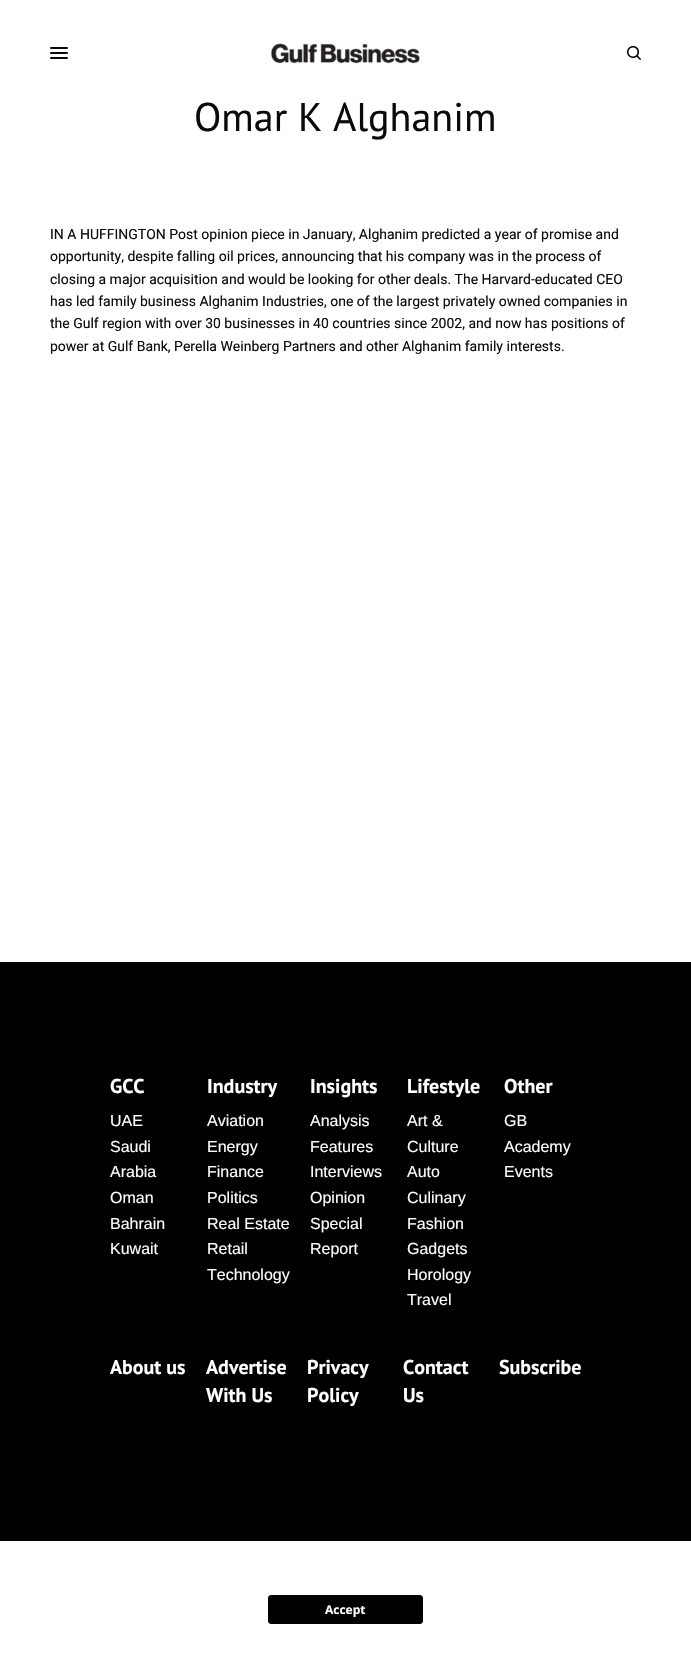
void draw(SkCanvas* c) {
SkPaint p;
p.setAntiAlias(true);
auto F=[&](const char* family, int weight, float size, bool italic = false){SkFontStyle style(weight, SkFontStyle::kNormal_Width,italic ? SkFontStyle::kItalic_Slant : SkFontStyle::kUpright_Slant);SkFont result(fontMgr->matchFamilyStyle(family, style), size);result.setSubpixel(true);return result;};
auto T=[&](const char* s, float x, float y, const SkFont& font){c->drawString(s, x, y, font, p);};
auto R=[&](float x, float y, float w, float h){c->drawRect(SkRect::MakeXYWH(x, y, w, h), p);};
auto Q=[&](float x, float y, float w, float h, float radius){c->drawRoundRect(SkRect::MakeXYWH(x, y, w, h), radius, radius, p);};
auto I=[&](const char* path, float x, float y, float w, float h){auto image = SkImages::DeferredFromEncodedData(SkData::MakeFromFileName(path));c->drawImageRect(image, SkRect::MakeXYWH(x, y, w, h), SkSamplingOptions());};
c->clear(0xffffffff);
p.setColor(0xff0a0a0a);
Q(50,47,18,2,1);
Q(50,52,18,2,1);
Q(50,57,18,2,1);
I("1.png",271,43,149,21);
I("2.png",627,46,14,14);
auto f1 = F("PT Sans",400,40);
T("Omar K Alghanim",194,131,f1);
auto f2 = F("Heebo",400,14);
T("IN A HUFFINGTON Post opinion piece in January, Alghanim predicted a year of promise and",50,239,f2);
T("opportunity, despite falling oil prices, announcing that his company was in the process of",50,261,f2);
T("closing a major acquisition and would be looking for other deals. The Harvard-educated CEO",50,284,f2);
T("has led family business Alghanim Industries, one of the largest privately owned companies in",50,306,f2);
T("the Gulf region with over 30 businesses in 40 countries since 2002, and now has positions of",50,328,f2);
T("power at Gulf Bank, Perella Weinberg Partners and other Alghanim family interests.",50,351,f2);
p.setColor(0xff000000);
R(0,962,691,579);
auto f3 = F("PT Sans",700,20);
p.setColor(0xffffffff);
T("GCC",110,1093,f3);
auto f4 = F("Liberation Sans",400,16);
T("UAE",110,1126,f4);
T("Saudi",110,1152,f4);
T("Arabia",110,1177,f4);
T("Oman",110,1203,f4);
T("Bahrain",110,1229,f4);
T("Kuwait",110,1254,f4);
T("Industry",207,1093,f3);
T("Aviation",207,1126,f4);
T("Energy",207,1152,f4);
T("Finance",207,1177,f4);
T("Politics",207,1203,f4);
T("Real Estate",207,1229,f4);
T("Retail",207,1254,f4);
T("Technology",207,1280,f4);
T("Insights",310,1093,f3);
T("Analysis",310,1126,f4);
T("Features",310,1152,f4);
T("Interviews",310,1177,f4);
T("Opinion",310,1203,f4);
T("Special",310,1229,f4);
T("Report",310,1254,f4);
T("Lifestyle",407,1093,f3);
T("Art &",407,1126,f4);
T("Culture",407,1152,f4);
T("Auto",407,1177,f4);
T("Culinary",407,1203,f4);
T("Fashion",407,1229,f4);
T("Gadgets",407,1254,f4);
T("Horology",407,1280,f4);
T("Travel",407,1305,f4);
T("Other",504,1093,f3);
T("GB",504,1126,f4);
T("Academy",504,1152,f4);
T("Events",504,1177,f4);
T("About us",110,1374,f3);
T("Advertise",206,1374,f3);
T("With Us",206,1402,f3);
T("Privacy",307,1374,f3);
T("Policy",307,1402,f3);
T("Contact",403,1374,f3);
T("Us",403,1402,f3);
T("Subscribe",499,1374,f3);
p.setColor(0xff000000);
c->drawRoundRect(SkRect::MakeXYWH(268.5,1595.5,154,28),2.5,2.5,p);
p.setStroke(true);
p.setStrokeWidth(1);
c->drawRoundRect(SkRect::MakeXYWH(268.5,1595.5,154,28),2.5,2.5,p);
auto f5 = F("Open Sans",700,12);
p.setStroke(false);
p.setColor(0xffffffff);
T("Accept",325,1614,f5);
}
